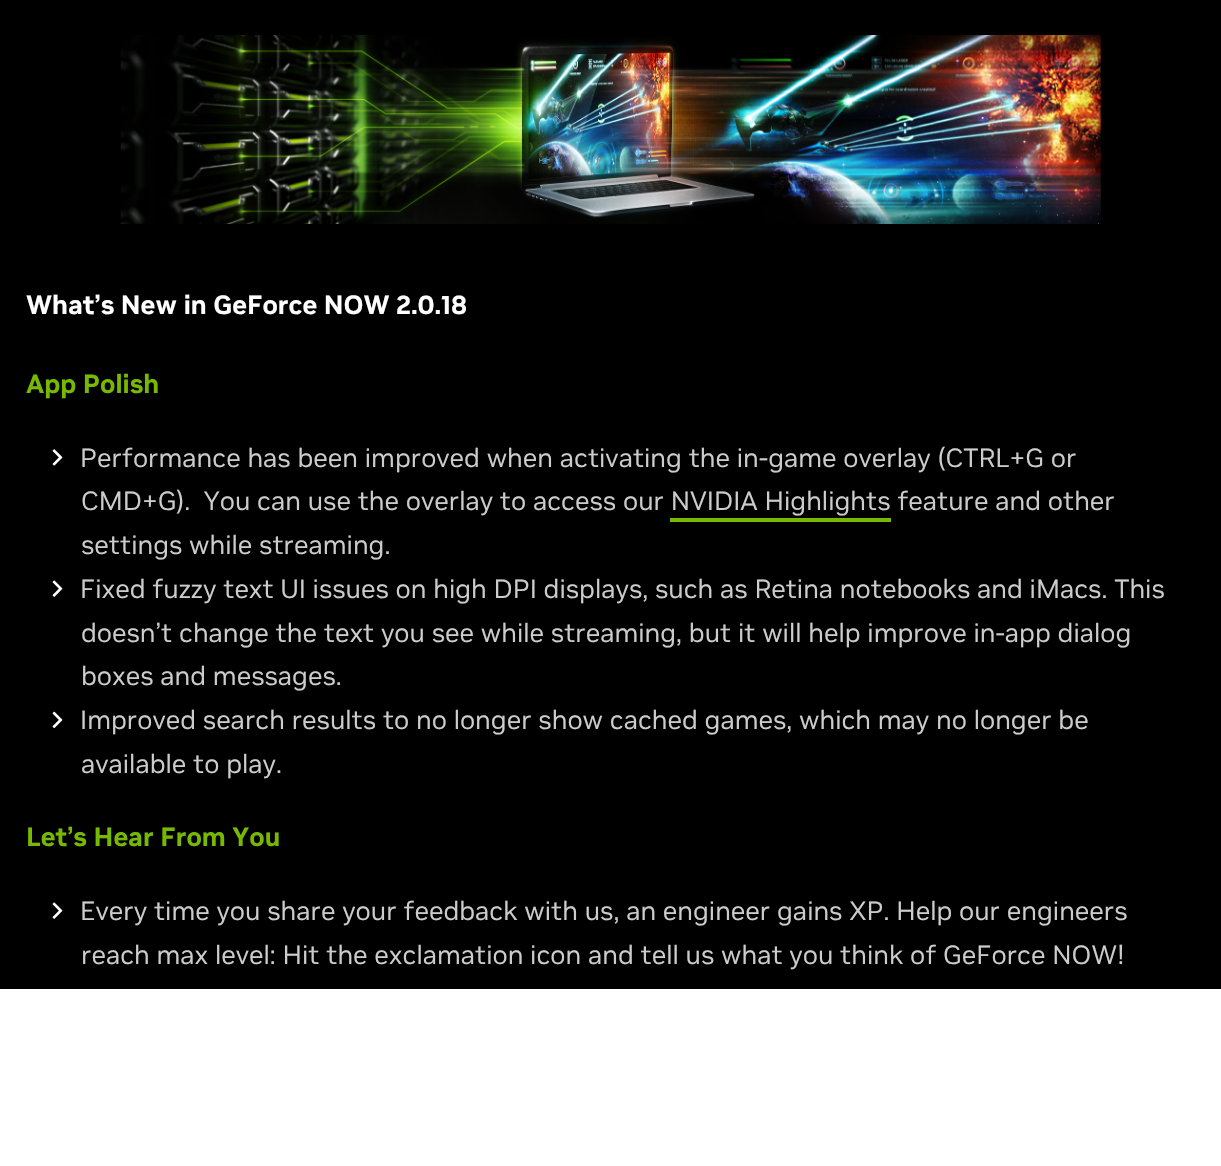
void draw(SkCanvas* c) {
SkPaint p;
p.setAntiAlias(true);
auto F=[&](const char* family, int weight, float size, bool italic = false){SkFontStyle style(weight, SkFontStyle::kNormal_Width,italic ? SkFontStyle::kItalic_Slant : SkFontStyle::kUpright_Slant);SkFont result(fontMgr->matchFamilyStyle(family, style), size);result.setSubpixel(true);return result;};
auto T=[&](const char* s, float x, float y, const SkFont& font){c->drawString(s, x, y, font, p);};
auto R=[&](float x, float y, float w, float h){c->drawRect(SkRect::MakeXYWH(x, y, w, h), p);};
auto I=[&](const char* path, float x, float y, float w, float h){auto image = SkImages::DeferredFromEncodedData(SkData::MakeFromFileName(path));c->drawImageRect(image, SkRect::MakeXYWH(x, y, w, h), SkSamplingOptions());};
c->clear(0xffffffff);
p.setColor(0xff000000);
R(0,0,1221,989);
I("1.png",120,35,981,189);
auto f1 = F("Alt",700,26.25);
p.setColor(0xffffffff);
T("What’s New in GeForce NOW 2.0.18",26,314,f1);
auto f2 = F("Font",700,26.25);
p.setColor(0xff76b900);
T("App Polish",26,393,f2);
I("2.png",52,449,11,17);
auto f3 = F("Font",400,26.25);
p.setColor(0xffcccccc);
T("Performance has been improved when activating the in-game overlay (CTRL+G or",80,467,f3);
T("CMD+G).  You can use the overlay to access our NVIDIA Highlights feature and other",81,510,f3);
p.setColor(0xff76b900);
R(670,518,221,4);
p.setColor(0xffcccccc);
T("settings while streaming.",81,554,f3);
I("3.png",52,580,11,17);
T("Fixed fuzzy text UI issues on high DPI displays, such as Retina notebooks and iMacs. This",80,598,f3);
T("doesn’t change the text you see while streaming, but it will help improve in-app dialog",81,642,f3);
T("boxes and messages.",81,685,f3);
I("4.png",52,711,11,18);
T("Improved search results to no longer show cached games, which may no longer be",80,729,f3);
T("available to play.",81,773,f3);
p.setColor(0xff76b900);
T("Let’s Hear From You",26,846,f2);
I("3.png",52,902,11,17);
p.setColor(0xffcccccc);
T("Every time you share your feedback with us, an engineer gains XP. Help our engineers",80,920,f3);
T("reach max level: Hit the exclamation icon and tell us what you think of GeForce NOW!",81,964,f3);
}
